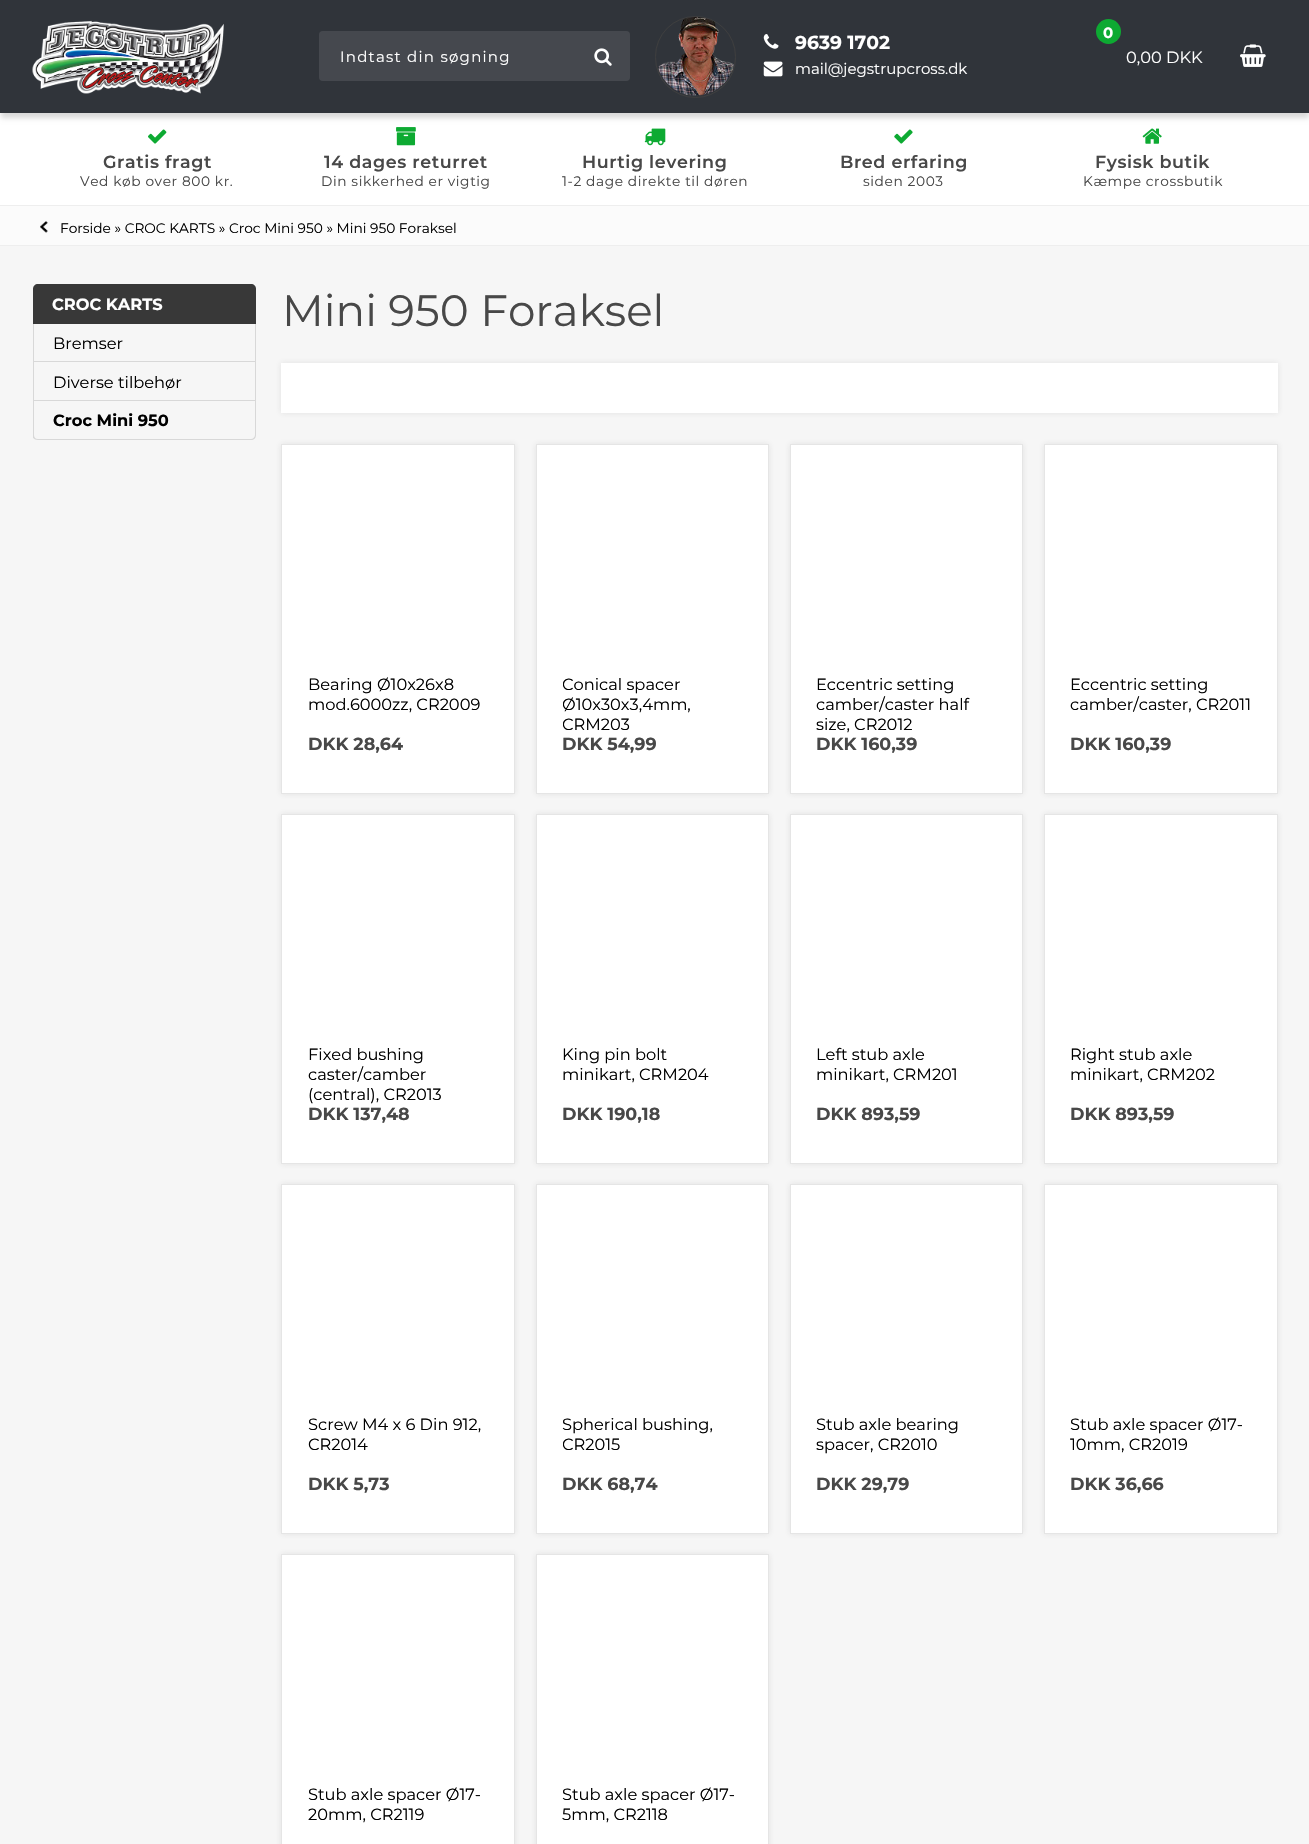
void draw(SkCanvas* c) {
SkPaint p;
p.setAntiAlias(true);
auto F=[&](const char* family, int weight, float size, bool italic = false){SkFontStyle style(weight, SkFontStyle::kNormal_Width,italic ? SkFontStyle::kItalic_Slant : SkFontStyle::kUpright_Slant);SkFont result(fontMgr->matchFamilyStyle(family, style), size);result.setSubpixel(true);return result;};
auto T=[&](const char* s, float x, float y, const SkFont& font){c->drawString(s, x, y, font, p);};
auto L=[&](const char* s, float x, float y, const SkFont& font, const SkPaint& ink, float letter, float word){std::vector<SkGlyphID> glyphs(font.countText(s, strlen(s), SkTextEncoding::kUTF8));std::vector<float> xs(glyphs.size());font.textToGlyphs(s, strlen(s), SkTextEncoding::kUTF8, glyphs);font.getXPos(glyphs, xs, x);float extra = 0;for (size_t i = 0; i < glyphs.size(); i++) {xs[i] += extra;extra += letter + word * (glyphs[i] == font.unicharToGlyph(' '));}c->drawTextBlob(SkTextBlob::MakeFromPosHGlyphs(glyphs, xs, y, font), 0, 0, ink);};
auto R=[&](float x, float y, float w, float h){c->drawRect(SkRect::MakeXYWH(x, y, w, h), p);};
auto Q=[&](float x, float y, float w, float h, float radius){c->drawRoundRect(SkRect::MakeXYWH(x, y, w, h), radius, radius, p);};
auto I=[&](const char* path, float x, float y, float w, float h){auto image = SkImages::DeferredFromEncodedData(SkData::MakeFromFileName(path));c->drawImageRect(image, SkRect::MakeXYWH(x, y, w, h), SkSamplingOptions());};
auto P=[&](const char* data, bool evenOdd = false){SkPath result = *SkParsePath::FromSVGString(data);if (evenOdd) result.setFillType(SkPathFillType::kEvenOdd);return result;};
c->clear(0xfff6f6f6);
p.setColor(0xffffffff);
R(0,113,1309,92);
p.setColor(0x26000000);
p.setMaskFilter(SkMaskFilter::MakeBlur(kNormal_SkBlurStyle, 2.5));
c->drawRect(SkRect::MakeXYWH(1,8,1308,110),p);
p.setMaskFilter(nullptr);
p.setColor(0xff30343a);
R(0,0,1309,113);
I("1.png",32,20,192,74);
p.setColor(0xff45484e);
Q(319,31,311,50,4);
auto f1 = F("Montserrat",400,15);
p.setColor(0xffffffff);
L("Indtast din søgning",340,62,f1,p,1.25,0);
I("2.png",594,48,18,18);
p.setStroke(true);
p.setStrokeWidth(1);
p.setColor(0xff3e3e3e);
c->drawRoundRect(SkRect::MakeXYWH(655.5,16.5,80,81),40,40,p);
I("3.png",658,17,76,79);
I("4.png",763,34,16,15);
auto f2 = F("Montserrat",700,18.75);
p.setStroke(false);
p.setColor(0xffffffff);
T("9639 1702",795,49,f2);
I("5.png",763,61,20,16);
T("mail@jegstrupcross.dk",795,74,f1);
p.setColor(0xff0daa32);
c->drawCircle(1108.5,31.5,12.5,p);
auto f3 = F("Montserrat",700,15);
p.setColor(0xffffffff);
T("0",1103,38,f3);
auto f4 = F("Montserrat",400,16.25);
T("0,00 DKK",1126,63,f4);
I("6.png",1240,44,26,23);
p.setColor(0xffeeeeee);
R(0,205,1309,1);
I("7.png",148,129,19,15);
auto f5 = F("Montserrat",600,17.5);
p.setColor(0xff484848);
L("Gratis fragt",103,168,f5,p,.6,0);
auto f6 = F("Montserrat",400,13.75);
L("Ved køb over 800 kr.",80,186,f6,p,.6,0);
I("8.png",396,127,20,19);
L("14 dages returret",324,168,f5,p,.6,0);
L("Din sikkerhed er vigtig",321,186,f6,p,.6,0);
I("9.png",644,128,22,18);
L("Hurtig levering",582,168,f5,p,.6,0);
L("1-2 dage direkte til døren",562,186,f6,p,.6,0);
I("10.png",894,129,19,15);
L("Bred erfaring",840,168,f5,p,.6,0);
L("siden 2003",863,186,f6,p,.6,0);
I("11.png",1142,128,20,16);
L("Fysisk butik",1095,168,f5,p,.6,0);
L("Kæmpe crossbutik",1083,186,f6,p,.6,0);
p.setColor(0xfffbfbfb);
R(0,206,1309,39);
p.setColor(0xffeeeeee);
R(0,245,1309,1);
I("12.png",40,221,8,12);
p.setColor(0xff000000);
T("Forside » CROC KARTS » Croc Mini 950 » Mini 950 Foraksel",60,233,f6);
p.setColor(0xff383838);
c->drawPath(P("M38 284h213c3 0 5 2 5 5v35h-223v-35c0-3 2-5 5-5z"),p);
auto f7 = F("Montserrat",700,16.25);
p.setColor(0xffffffff);
T("CROC KARTS",52,310,f7);
p.setColor(0xffd8d8d8);
R(255,324,1,77);
R(33,361,223,1);
R(33,324,1,39);
p.setColor(0xff000000);
T("Bremser",53,349,f4);
p.setColor(0xffd8d8d8);
R(33,400,223,1);
R(33,363,1,38);
p.setColor(0xff000000);
T("Diverse tilbehør",53,388,f4);
c->save();
c->clipRect(SkRect::MakeXYWH(33,284,223,169));
p.setColor(0xffd8d8d8);
c->drawPath(P("M32 401h224v34c0 3-2 5-5 5h-213c-3 0-6-2-6-5zm2 0h221v34c0 2-2 4-4 4h-213c-3 0-4-2-4-4z",true),p);
c->restore();
p.setColor(0xff000000);
T("Croc Mini 950",53,426,f7);
auto f8 = F("Montserrat",400,43.75);
p.setColor(0xff484848);
T("Mini 950 Foraksel",282,326,f8);
p.setColor(0x1a333333);
p.setMaskFilter(SkMaskFilter::MakeBlur(kNormal_SkBlurStyle, 3));
c->drawRect(SkRect::MakeXYWH(281,363,997,50),p);
p.setMaskFilter(nullptr);
p.setColor(0xffffffff);
R(281,363,997,50);
p.setColor(0x1a333333);
p.setMaskFilter(SkMaskFilter::MakeBlur(kNormal_SkBlurStyle, 3));
c->drawRect(SkRect::MakeXYWH(281,444,234,350),p);
p.setMaskFilter(nullptr);
p.setColor(0xffffffff);
c->drawRect(SkRect::MakeXYWH(281.5,444.5,233,349),p);
p.setStroke(true);
p.setColor(0xffe5e5e5);
c->drawRect(SkRect::MakeXYWH(281.5,444.5,233,349),p);
p.setStroke(false);
p.setColor(0xff000000);
T("Bearing Ø10x26x8",308,690,f4);
T("mod.6000zz, CR2009",308,710,f4);
auto f9 = F("Montserrat",700,17.5);
p.setColor(0xff484848);
T("DKK 28,64",308,750,f9);
p.setColor(0x1a333333);
p.setMaskFilter(SkMaskFilter::MakeBlur(kNormal_SkBlurStyle, 3));
c->drawRect(SkRect::MakeXYWH(536,444,233,350),p);
p.setMaskFilter(nullptr);
p.setColor(0xffffffff);
c->drawRect(SkRect::MakeXYWH(536.5,444.5,232,349),p);
p.setStroke(true);
p.setColor(0xffe5e5e5);
c->drawRect(SkRect::MakeXYWH(536.5,444.5,232,349),p);
c->save();
c->clipRect(SkRect::MakeXYWH(563,651,180,82));
p.setStroke(false);
p.setColor(0xff000000);
T("Conical spacer",562,690,f4);
T("Ø10x30x3,4mm,",562,710,f4);
T("CRM203",562,730,f4);
c->restore();
p.setColor(0xff484848);
T("DKK 54,99",562,750,f9);
p.setColor(0x1a333333);
p.setMaskFilter(SkMaskFilter::MakeBlur(kNormal_SkBlurStyle, 3));
c->drawRect(SkRect::MakeXYWH(790,444,233,350),p);
p.setMaskFilter(nullptr);
p.setColor(0xffffffff);
c->drawRect(SkRect::MakeXYWH(790.5,444.5,232,349),p);
p.setStroke(true);
p.setColor(0xffe5e5e5);
c->drawRect(SkRect::MakeXYWH(790.5,444.5,232,349),p);
p.setStroke(false);
p.setColor(0xff000000);
T("Eccentric setting",816,690,f4);
T("camber/caster half",816,710,f4);
T("size, CR2012",816,730,f4);
p.setColor(0xff484848);
T("DKK 160,39",816,750,f9);
p.setColor(0x1a333333);
p.setMaskFilter(SkMaskFilter::MakeBlur(kNormal_SkBlurStyle, 3));
c->drawRect(SkRect::MakeXYWH(1044,444,234,350),p);
p.setMaskFilter(nullptr);
p.setColor(0xffffffff);
c->drawRect(SkRect::MakeXYWH(1044.5,444.5,233,349),p);
p.setStroke(true);
p.setColor(0xffe5e5e5);
c->drawRect(SkRect::MakeXYWH(1044.5,444.5,233,349),p);
p.setStroke(false);
p.setColor(0xff000000);
T("Eccentric setting",1070,690,f4);
T("camber/caster, CR2011",1070,710,f4);
p.setColor(0xff484848);
T("DKK 160,39",1070,750,f9);
p.setColor(0x1a333333);
p.setMaskFilter(SkMaskFilter::MakeBlur(kNormal_SkBlurStyle, 3));
c->drawRect(SkRect::MakeXYWH(281,814,234,350),p);
p.setMaskFilter(nullptr);
p.setColor(0xffffffff);
c->drawRect(SkRect::MakeXYWH(281.5,814.5,233,349),p);
p.setStroke(true);
p.setColor(0xffe5e5e5);
c->drawRect(SkRect::MakeXYWH(281.5,814.5,233,349),p);
p.setStroke(false);
p.setColor(0xff000000);
T("Fixed bushing",308,1060,f4);
T("caster/camber",308,1080,f4);
T("(central), CR2013",308,1100,f4);
p.setColor(0xff484848);
T("DKK 137,48",308,1120,f9);
p.setColor(0x1a333333);
p.setMaskFilter(SkMaskFilter::MakeBlur(kNormal_SkBlurStyle, 3));
c->drawRect(SkRect::MakeXYWH(536,814,233,350),p);
p.setMaskFilter(nullptr);
p.setColor(0xffffffff);
c->drawRect(SkRect::MakeXYWH(536.5,814.5,232,349),p);
p.setStroke(true);
p.setColor(0xffe5e5e5);
c->drawRect(SkRect::MakeXYWH(536.5,814.5,232,349),p);
p.setStroke(false);
p.setColor(0xff000000);
T("King pin bolt",562,1060,f4);
T("minikart, CRM204",562,1080,f4);
p.setColor(0xff484848);
T("DKK 190,18",562,1120,f9);
p.setColor(0x1a333333);
p.setMaskFilter(SkMaskFilter::MakeBlur(kNormal_SkBlurStyle, 3));
c->drawRect(SkRect::MakeXYWH(790,814,233,350),p);
p.setMaskFilter(nullptr);
p.setColor(0xffffffff);
c->drawRect(SkRect::MakeXYWH(790.5,814.5,232,349),p);
p.setStroke(true);
p.setColor(0xffe5e5e5);
c->drawRect(SkRect::MakeXYWH(790.5,814.5,232,349),p);
p.setStroke(false);
p.setColor(0xff000000);
T("Left stub axle",816,1060,f4);
T("minikart, CRM201",816,1080,f4);
p.setColor(0xff484848);
T("DKK 893,59",816,1120,f9);
p.setColor(0x1a333333);
p.setMaskFilter(SkMaskFilter::MakeBlur(kNormal_SkBlurStyle, 3));
c->drawRect(SkRect::MakeXYWH(1044,814,234,350),p);
p.setMaskFilter(nullptr);
p.setColor(0xffffffff);
c->drawRect(SkRect::MakeXYWH(1044.5,814.5,233,349),p);
p.setStroke(true);
p.setColor(0xffe5e5e5);
c->drawRect(SkRect::MakeXYWH(1044.5,814.5,233,349),p);
p.setStroke(false);
p.setColor(0xff000000);
T("Right stub axle",1070,1060,f4);
T("minikart, CRM202",1070,1080,f4);
p.setColor(0xff484848);
T("DKK 893,59",1070,1120,f9);
p.setColor(0x1a333333);
p.setMaskFilter(SkMaskFilter::MakeBlur(kNormal_SkBlurStyle, 3));
c->drawRect(SkRect::MakeXYWH(281,1184,234,350),p);
p.setMaskFilter(nullptr);
p.setColor(0xffffffff);
c->drawRect(SkRect::MakeXYWH(281.5,1184.5,233,349),p);
p.setStroke(true);
p.setColor(0xffe5e5e5);
c->drawRect(SkRect::MakeXYWH(281.5,1184.5,233,349),p);
p.setStroke(false);
p.setColor(0xff000000);
T("Screw M4 x 6 Din 912,",308,1430,f4);
T("CR2014",308,1450,f4);
p.setColor(0xff484848);
T("DKK 5,73",308,1490,f9);
p.setColor(0x1a333333);
p.setMaskFilter(SkMaskFilter::MakeBlur(kNormal_SkBlurStyle, 3));
c->drawRect(SkRect::MakeXYWH(536,1184,233,350),p);
p.setMaskFilter(nullptr);
p.setColor(0xffffffff);
c->drawRect(SkRect::MakeXYWH(536.5,1184.5,232,349),p);
p.setStroke(true);
p.setColor(0xffe5e5e5);
c->drawRect(SkRect::MakeXYWH(536.5,1184.5,232,349),p);
p.setStroke(false);
p.setColor(0xff000000);
T("Spherical bushing,",562,1430,f4);
c->save();
c->clipRect(SkRect::MakeXYWH(563,1391,180,82));
T("CR2015",562,1450,f4);
c->restore();
p.setColor(0xff484848);
T("DKK 68,74",562,1490,f9);
p.setColor(0x1a333333);
p.setMaskFilter(SkMaskFilter::MakeBlur(kNormal_SkBlurStyle, 3));
c->drawRect(SkRect::MakeXYWH(790,1184,233,350),p);
p.setMaskFilter(nullptr);
p.setColor(0xffffffff);
c->drawRect(SkRect::MakeXYWH(790.5,1184.5,232,349),p);
p.setStroke(true);
p.setColor(0xffe5e5e5);
c->drawRect(SkRect::MakeXYWH(790.5,1184.5,232,349),p);
p.setStroke(false);
p.setColor(0xff000000);
T("Stub axle bearing",816,1430,f4);
T("spacer, CR2010",816,1450,f4);
p.setColor(0xff484848);
T("DKK 29,79",816,1490,f9);
p.setColor(0x1a333333);
p.setMaskFilter(SkMaskFilter::MakeBlur(kNormal_SkBlurStyle, 3));
c->drawRect(SkRect::MakeXYWH(1044,1184,234,350),p);
p.setMaskFilter(nullptr);
p.setColor(0xffffffff);
c->drawRect(SkRect::MakeXYWH(1044.5,1184.5,233,349),p);
p.setStroke(true);
p.setColor(0xffe5e5e5);
c->drawRect(SkRect::MakeXYWH(1044.5,1184.5,233,349),p);
p.setStroke(false);
p.setColor(0xff000000);
T("Stub axle spacer Ø17-",1070,1430,f4);
T("10mm, CR2019",1070,1450,f4);
p.setColor(0xff484848);
T("DKK 36,66",1070,1490,f9);
p.setColor(0x1a333333);
p.setMaskFilter(SkMaskFilter::MakeBlur(kNormal_SkBlurStyle, 3));
c->drawRect(SkRect::MakeXYWH(281,1554,234,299),p);
p.setMaskFilter(nullptr);
p.setColor(0xffffffff);
c->drawRect(SkRect::MakeXYWH(281.5,1554.5,233,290),p);
p.setStroke(true);
p.setColor(0xffe5e5e5);
c->drawRect(SkRect::MakeXYWH(281.5,1554.5,233,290),p);
p.setStroke(false);
p.setColor(0xff000000);
T("Stub axle spacer Ø17-",308,1800,f4);
T("20mm, CR2119",308,1820,f4);
p.setColor(0x1a333333);
p.setMaskFilter(SkMaskFilter::MakeBlur(kNormal_SkBlurStyle, 3));
c->drawRect(SkRect::MakeXYWH(536,1554,233,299),p);
p.setMaskFilter(nullptr);
p.setColor(0xffffffff);
c->drawRect(SkRect::MakeXYWH(536.5,1554.5,232,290),p);
p.setStroke(true);
p.setColor(0xffe5e5e5);
c->drawRect(SkRect::MakeXYWH(536.5,1554.5,232,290),p);
p.setStroke(false);
p.setColor(0xff000000);
T("Stub axle spacer Ø17-",562,1800,f4);
T("5mm, CR2118",562,1820,f4);
}
